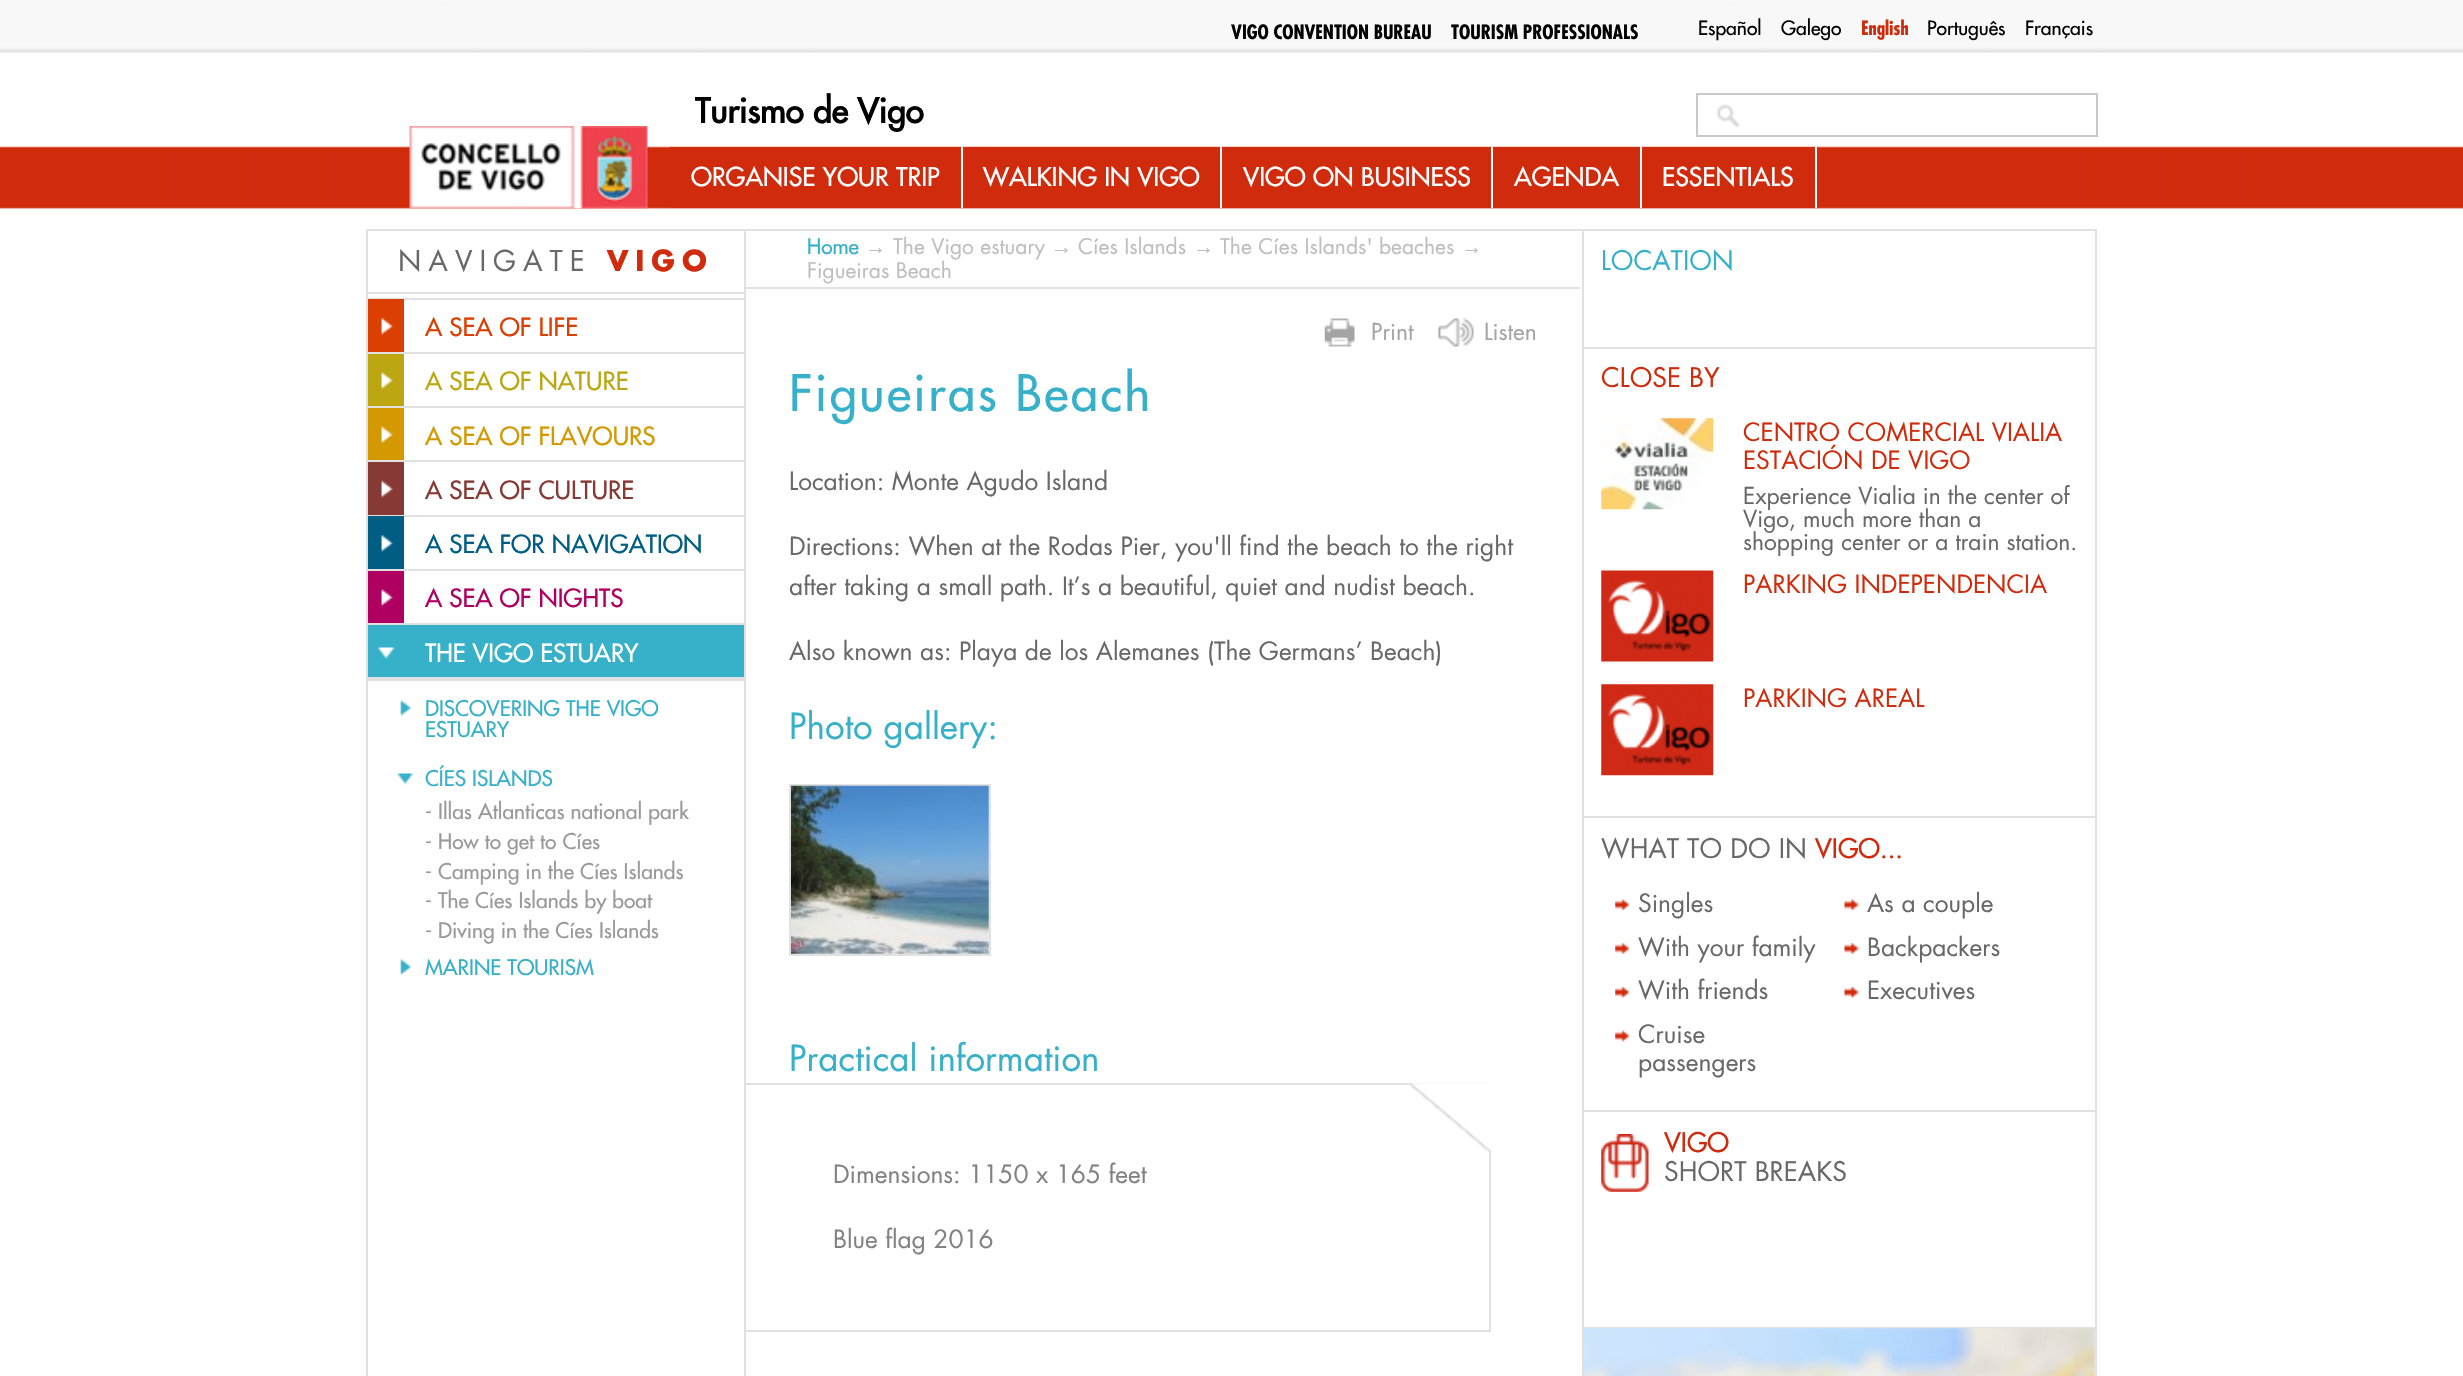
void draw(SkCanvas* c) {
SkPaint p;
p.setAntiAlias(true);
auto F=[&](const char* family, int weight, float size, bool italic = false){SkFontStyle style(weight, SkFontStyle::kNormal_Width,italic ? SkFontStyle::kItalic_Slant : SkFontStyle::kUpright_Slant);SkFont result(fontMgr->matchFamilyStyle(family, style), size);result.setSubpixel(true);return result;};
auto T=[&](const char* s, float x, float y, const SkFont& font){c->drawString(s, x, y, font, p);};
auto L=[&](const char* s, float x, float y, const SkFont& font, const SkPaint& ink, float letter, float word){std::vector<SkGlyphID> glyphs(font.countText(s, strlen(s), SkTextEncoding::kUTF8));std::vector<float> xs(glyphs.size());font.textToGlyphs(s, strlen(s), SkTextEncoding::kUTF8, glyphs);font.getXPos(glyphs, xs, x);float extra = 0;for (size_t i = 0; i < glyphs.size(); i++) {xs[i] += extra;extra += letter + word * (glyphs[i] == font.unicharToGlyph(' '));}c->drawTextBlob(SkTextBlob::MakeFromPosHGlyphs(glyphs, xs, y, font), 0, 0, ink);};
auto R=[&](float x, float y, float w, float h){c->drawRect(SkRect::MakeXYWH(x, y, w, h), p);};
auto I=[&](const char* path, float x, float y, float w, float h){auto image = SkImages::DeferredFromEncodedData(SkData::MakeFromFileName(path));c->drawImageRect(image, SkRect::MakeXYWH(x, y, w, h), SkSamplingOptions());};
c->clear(0xffffffff);
I("1.png",0,0,2463,209);
auto f1 = F("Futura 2",700,19.25);
p.setColor(0xff000000);
T("VIGO CONVENTION BUREAU",1231,39,f1);
T("TOURISM PROFESSIONALS",1451,39,f1);
auto f2 = F("Futura",500,19.25);
T("Español",1698,35,f2);
T("Galego",1781,35,f2);
p.setColor(0xffd02b0c);
T("English",1861,35,f1);
p.setColor(0xff000000);
T("Português",1927,35,f2);
T("Français",2025,35,f2);
auto f3 = F("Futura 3",700,33.25);
T("Turismo de Vigo",695,123,f3);
p.setStroke(true);
p.setStrokeWidth(2);
p.setColor(0xffc9c9c9);
c->drawRect(SkRect::MakeXYWH(1697,94,400,42),p);
I("2.png",1716,104,24,24);
I("3.png",409,126,239,83);
p.setStroke(false);
p.setColor(0xffd02b0c);
R(670,147,291,61);
p.setColor(0xffffffff);
R(961,147,2,61);
auto f4 = F("Futura",500,25.25);
T("ORGANISE YOUR TRIP",691,186,f4);
p.setColor(0xffd02b0c);
R(963,147,257,61);
p.setColor(0xffffffff);
R(1220,147,2,61);
T("WALKING IN VIGO",983,186,f4);
p.setColor(0xffd02b0c);
R(1222,147,269,61);
p.setColor(0xffffffff);
R(1491,147,2,61);
T("VIGO ON BUSINESS",1243,186,f4);
p.setColor(0xffd02b0c);
R(1493,147,147,61);
p.setColor(0xffffffff);
R(1640,147,2,61);
T("AGENDA",1514,186,f4);
p.setColor(0xffd02b0c);
R(1642,147,173,61);
p.setColor(0xffffffff);
R(1815,147,2,61);
T("ESSENTIALS",1662,186,f4);
p.setColor(0xffe1e1e1);
R(366,229,2,1147);
R(368,229,376,2);
R(368,292,376,2);
auto f5 = F("Futura",400,28);
p.setColor(0xff686868);
L("NAVIGATE",398,271,f5,p,7,0);
auto f6 = F("Futura",700,28);
p.setColor(0xffd02b0c);
L("VIGO",607,271,f6,p,7,0);
p.setColor(0xffe1e1e1);
R(368,298,376,2);
p.setColor(0xffdb3f02);
R(368,299,36,53);
I("4.png",381,318,12,17);
auto f7 = F("Futura",500,24.5);
T("A SEA OF LIFE",425,336,f7);
p.setColor(0xffe1e1e1);
R(368,352,376,2);
p.setColor(0xffbca713);
R(368,354,36,52);
I("5.png",381,372,12,17);
T("A SEA OF NATURE",425,390,f7);
p.setColor(0xffe1e1e1);
R(368,406,376,2);
p.setColor(0xffd49800);
R(368,408,36,52);
I("6.png",381,426,12,18);
T("A SEA OF FLAVOURS",425,445,f7);
p.setColor(0xffe1e1e1);
R(368,460,376,2);
p.setColor(0xff873a35);
R(368,462,36,53);
I("7.png",381,480,12,18);
T("A SEA OF CULTURE",425,499,f7);
p.setColor(0xffe1e1e1);
R(368,515,376,2);
p.setColor(0xff005d83);
R(368,516,36,53);
I("8.png",381,535,12,17);
T("A SEA FOR NAVIGATION",425,553,f7);
p.setColor(0xffe1e1e1);
R(368,569,376,2);
p.setColor(0xffaf0061);
R(368,571,36,52);
I("9.png",381,589,12,17);
T("A SEA OF NIGHTS",425,607,f7);
p.setColor(0xff37b0c9);
R(368,625,376,52);
p.setColor(0xffe1e1e1);
R(368,623,376,2);
I("10.png",378,647,17,12);
p.setColor(0xffffffff);
T("THE VIGO ESTUARY",425,662,f7);
p.setColor(0xffe1e1e1);
R(368,677,376,4);
I("11.png",400,699,12,17);
auto f8 = F("Futura",500,21);
p.setColor(0xff37b0c9);
T("DISCOVERING THE VIGO",425,716,f8);
T("ESTUARY",425,737,f8);
I("12.png",397,773,16,12);
T("CÍES ISLANDS",425,786,f8);
p.setColor(0xff9a9a9a);
T("- Illas Atlanticas national park",425,819,f8);
T("- How to get to Cíes",425,849,f8);
T("- Camping in the Cíes Islands",425,879,f8);
T("- The Cíes Islands by boat",425,908,f8);
T("- Diving in the Cíes Islands",425,938,f8);
I("11.png",400,958,12,17);
p.setColor(0xff37b0c9);
T("MARINE TOURISM",425,975,f8);
p.setStroke(true);
p.setColor(0xffe1e1e1);
c->drawRect(SkRect::MakeXYWH(745,230,1351,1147),p);
p.setStroke(false);
R(746,287,834,2);
p.setColor(0xff37b0c9);
T("Home",807,254,f8);
auto f9 = F("Liberation Sans",400,21);
p.setColor(0xffbebebe);
T("→",865,254,f9);
auto f10 = F("Futura",400,21);
T("The Vigo estuary",893,254,f10);
T("→",1051,254,f9);
T("Cíes Islands",1078,254,f10);
T("→",1193,254,f9);
T("The Cíes Islands' beaches",1220,254,f10);
T("→",1461,254,f9);
T("Figueiras Beach",807,278,f10);
I("13.png",1324,318,31,29);
auto f11 = F("Futura",400,22.75);
p.setColor(0xffa4a4a4);
T("Print",1371,340,f11);
I("14.png",1438,318,36,29);
T("Listen",1484,340,f11);
auto f12 = F("Futura",500,49);
p.setColor(0xff37b0c9);
L("Figueiras Beach",789,411,f12,p,2.5,0);
auto f13 = F("Futura",400,24.5);
p.setColor(0xff686868);
T("Location: Monte Agudo Island",789,490,f13);
T("Directions: When at the Rodas Pier, you'll find the beach to the right",789,555,f13);
T("after taking a small path. It’s a beautiful, quiet and nudist beach.",789,595,f13);
T("Also known as: Playa de los Alemanes (The Germans’ Beach)",789,660,f13);
auto f14 = F("Futura",400,35);
p.setColor(0xff37b0c9);
T("Photo gallery:",789,739,f14);
p.setStroke(true);
p.setColor(0xffe1e1e1);
c->drawRect(SkRect::MakeXYWH(790,785,200,170),p);
I("15.png",791,785,198,169);
p.setStroke(false);
p.setColor(0xff37b0c9);
T("Practical information",789,1071,f14);
p.setColor(0xffe1e1e1);
R(746,1083,745,2);
R(1489,1083,2,249);
R(746,1330,745,2);
I("16.png",1410,1083,81,69);
p.setColor(0xff828282);
T("Dimensions: 1150 x 165 feet",833,1183,f13);
T("Blue flag 2016",833,1248,f13);
p.setColor(0xffe1e1e1);
R(1582,231,2,1145);
R(1584,347,511,2);
auto f15 = F("Futura",400,26.25);
p.setColor(0xff37b0c9);
T("LOCATION",1601,270,f15);
p.setColor(0xffe1e1e1);
R(1584,816,511,2);
p.setColor(0xffd02b0c);
T("CLOSE BY",1601,387,f15);
I("17.png",1601,418,113,92);
T("CENTRO COMERCIAL VIALIA",1743,441,f13);
T("ESTACIÓN DE VIGO",1743,469,f13);
p.setColor(0xff686868);
T("Experience Vialia in the center of",1743,504,f11);
T("Vigo, much more than a",1743,527,f11);
T("shopping center or a train station.",1743,550,f11);
I("18.png",1601,570,113,92);
p.setColor(0xffd02b0c);
T("PARKING INDEPENDENCIA",1743,593,f13);
I("19.png",1601,684,113,92);
T("PARKING AREAL",1743,707,f13);
p.setColor(0xffe1e1e1);
R(1584,1110,511,2);
p.setColor(0xff686868);
T("WHAT TO DO IN",1601,858,f15);
auto f16 = F("Futura",500,26.25);
p.setColor(0xffd02b0c);
T("VIGO...",1815,858,f16);
I("20.png",1615,899,15,11);
p.setColor(0xff686868);
T("Singles",1638,912,f13);
I("21.png",1844,899,15,11);
T("As a couple",1867,912,f13);
I("22.png",1615,943,15,11);
T("With your family",1638,956,f13);
I("23.png",1844,943,15,11);
T("Backpackers",1867,956,f13);
I("24.png",1615,987,15,11);
T("With friends",1638,999,f13);
I("25.png",1844,987,15,11);
T("Executives",1867,999,f13);
I("26.png",1615,1030,15,12);
T("Cruise",1638,1043,f13);
T("passengers",1638,1071,f13);
p.setColor(0xffe1e1e1);
R(1584,1327,511,2);
I("27.png",1601,1134,48,58);
p.setColor(0xffd02b0c);
T("VIGO",1664,1152,f16);
p.setColor(0xff686868);
T("SHORT BREAKS",1664,1181,f15);
I("28.png",1583,1328,512,48);
}
